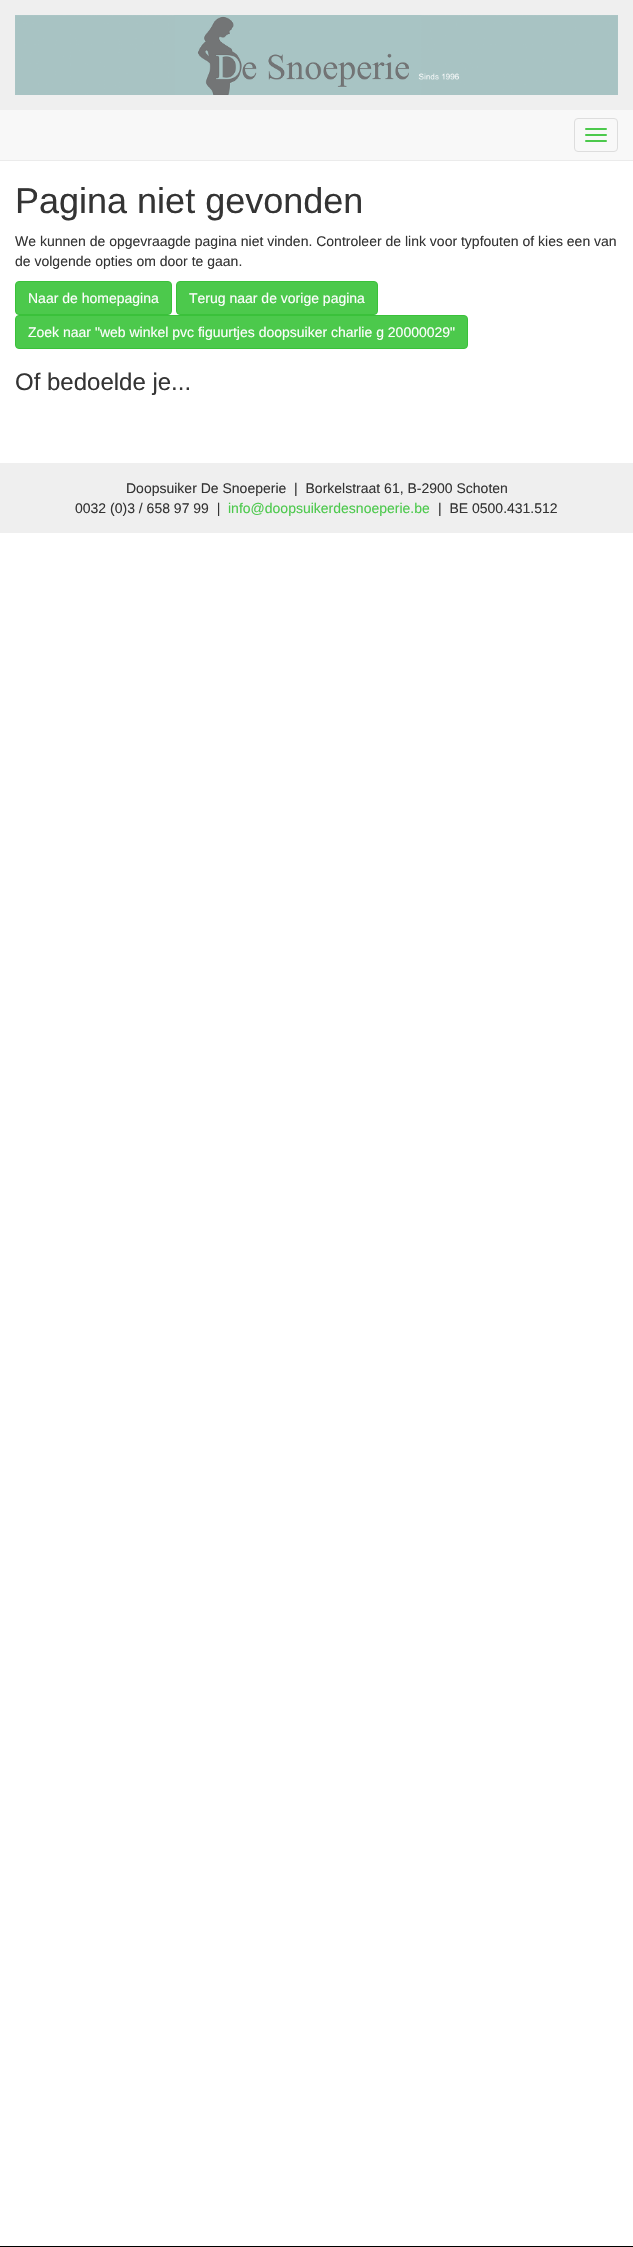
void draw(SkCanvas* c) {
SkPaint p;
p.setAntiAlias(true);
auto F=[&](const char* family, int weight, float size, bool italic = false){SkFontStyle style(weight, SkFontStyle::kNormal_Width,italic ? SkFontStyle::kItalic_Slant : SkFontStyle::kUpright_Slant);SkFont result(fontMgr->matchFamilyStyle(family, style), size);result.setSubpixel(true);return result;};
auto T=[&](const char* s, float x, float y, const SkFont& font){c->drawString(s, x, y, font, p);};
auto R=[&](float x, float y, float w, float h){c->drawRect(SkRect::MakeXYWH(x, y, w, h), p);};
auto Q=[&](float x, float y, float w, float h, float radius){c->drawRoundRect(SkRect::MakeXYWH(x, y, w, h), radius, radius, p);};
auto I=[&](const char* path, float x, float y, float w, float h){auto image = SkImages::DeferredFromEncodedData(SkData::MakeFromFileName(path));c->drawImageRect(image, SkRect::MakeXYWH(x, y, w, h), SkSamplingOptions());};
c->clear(0xffffffff);
p.setColor(0xffefefef);
R(0,0,633,110);
I("1.png",15,15,603,80);
p.setColor(0xfff8f8f8);
R(0,110,633,50);
p.setColor(0xffebebeb);
R(0,160,633,1);
p.setStroke(true);
p.setStrokeWidth(1);
p.setColor(0xffdddddd);
c->drawRoundRect(SkRect::MakeXYWH(574.5,118.5,43,33),3.5,3.5,p);
p.setStroke(false);
p.setColor(0xff4cc94c);
Q(585,128,22,2,1);
Q(585,134,22,2,1);
Q(585,140,22,2,1);
auto f1 = F("Liberation Sans",400,36);
p.setColor(0xff343434);
T("Pagina niet gevonden",15,213,f1);
auto f2 = F("Liberation Sans",400,14);
T("We kunnen de opgevraagde pagina niet vinden. Controleer de link voor typfouten of kies een van",15,246,f2);
T("de volgende opties om door te gaan.",15,266,f2);
p.setColor(0xff4cc94c);
c->drawRoundRect(SkRect::MakeXYWH(15.5,281.5,156,33),3.5,3.5,p);
p.setStroke(true);
p.setColor(0xff3ac13a);
c->drawRoundRect(SkRect::MakeXYWH(15.5,281.5,156,33),3.5,3.5,p);
p.setStroke(false);
p.setColor(0xfffefefe);
T("Naar de homepagina",28,303,f2);
p.setColor(0xff4cc94c);
c->drawRoundRect(SkRect::MakeXYWH(176.5,281.5,201,33),3.5,3.5,p);
p.setStroke(true);
p.setColor(0xff3ac13a);
c->drawRoundRect(SkRect::MakeXYWH(176.5,281.5,201,33),3.5,3.5,p);
p.setStroke(false);
p.setColor(0xfffefefe);
T("Terug naar de vorige pagina",189,303,f2);
p.setColor(0xff4cc94c);
c->drawRoundRect(SkRect::MakeXYWH(15.5,315.5,452,33),3.5,3.5,p);
p.setStroke(true);
p.setColor(0xff3ac13a);
c->drawRoundRect(SkRect::MakeXYWH(15.5,315.5,452,33),3.5,3.5,p);
p.setStroke(false);
p.setColor(0xfffefefe);
T("Zoek naar \"web winkel pvc figuurtjes doopsuiker charlie g 20000029\"",28,337,f2);
auto f3 = F("Liberation Sans",400,24);
p.setColor(0xff343434);
T("Of bedoelde je...",15,390,f3);
p.setColor(0xffefefef);
R(0,463,633,70);
p.setColor(0xff343434);
T("Doopsuiker De Snoeperie  |  Borkelstraat 61, B-2900 Schoten",126,493,f2);
T("0032 (0)3 / 658 97 99  |",75,513,f2);
p.setColor(0xff4cc94c);
T("info@doopsuikerdesnoeperie.be",228,513,f2);
p.setColor(0xff343434);
T("|  BE 0500.431.512",438,513,f2);
p.setColor(0xff000000);
R(0,2246,633,1);
}
